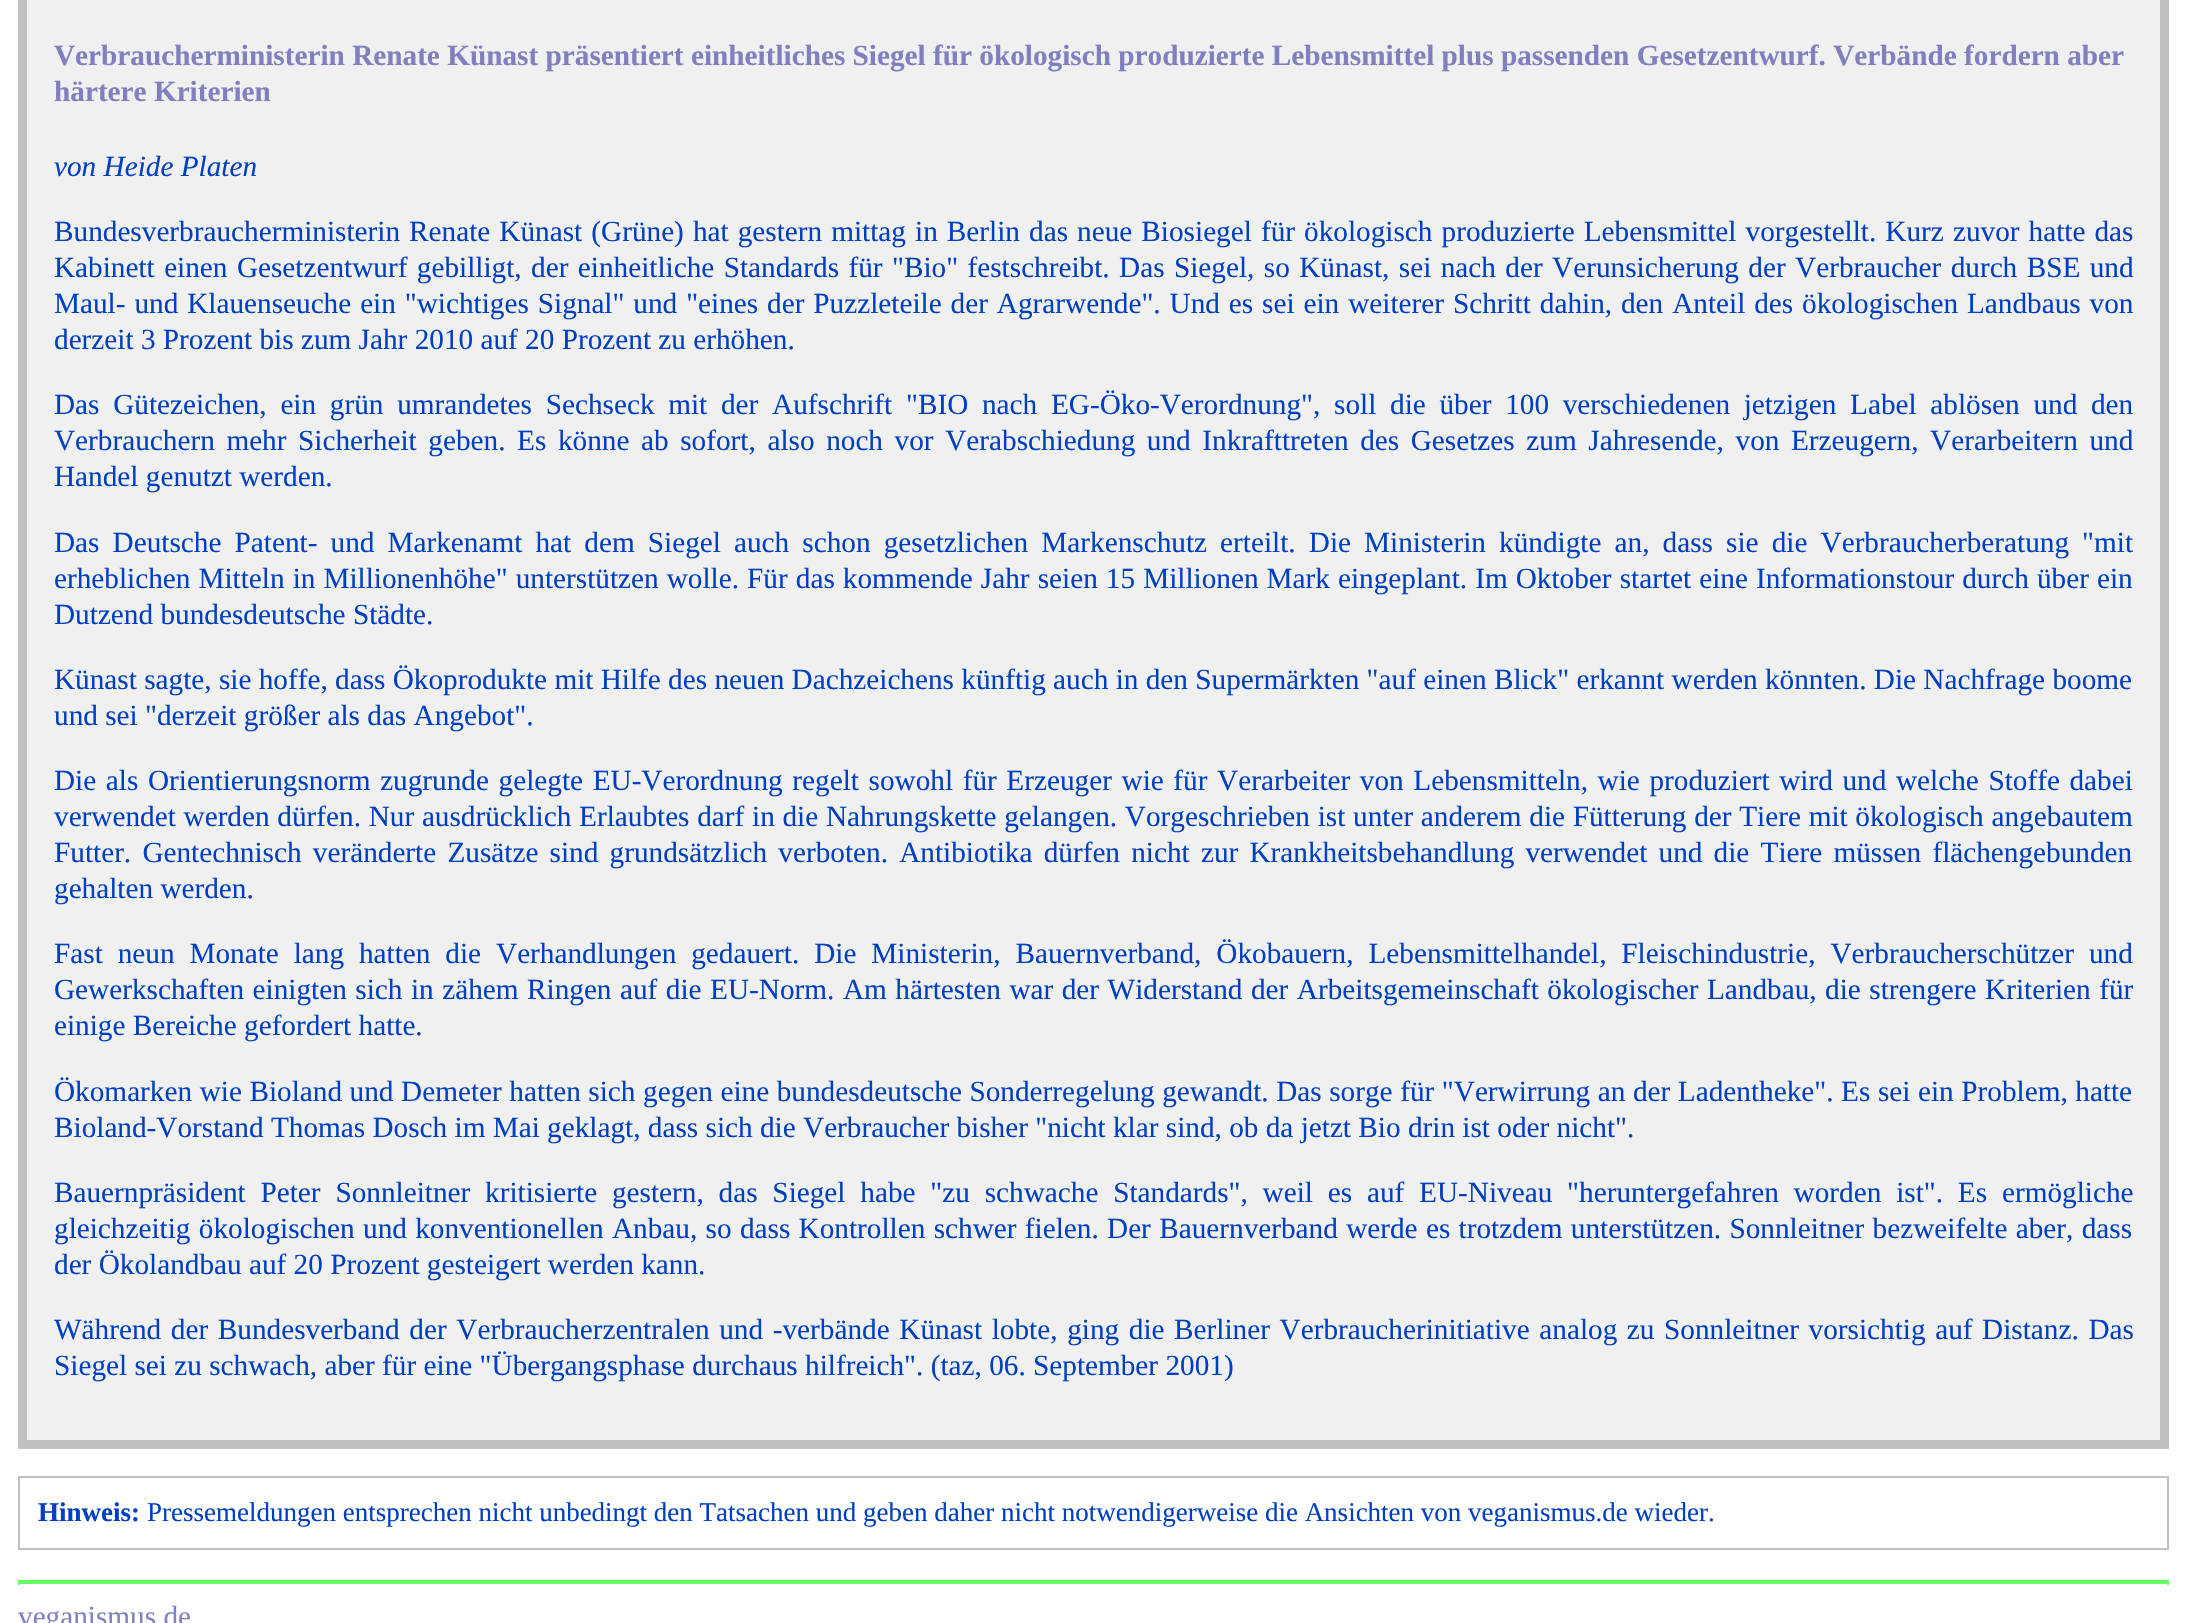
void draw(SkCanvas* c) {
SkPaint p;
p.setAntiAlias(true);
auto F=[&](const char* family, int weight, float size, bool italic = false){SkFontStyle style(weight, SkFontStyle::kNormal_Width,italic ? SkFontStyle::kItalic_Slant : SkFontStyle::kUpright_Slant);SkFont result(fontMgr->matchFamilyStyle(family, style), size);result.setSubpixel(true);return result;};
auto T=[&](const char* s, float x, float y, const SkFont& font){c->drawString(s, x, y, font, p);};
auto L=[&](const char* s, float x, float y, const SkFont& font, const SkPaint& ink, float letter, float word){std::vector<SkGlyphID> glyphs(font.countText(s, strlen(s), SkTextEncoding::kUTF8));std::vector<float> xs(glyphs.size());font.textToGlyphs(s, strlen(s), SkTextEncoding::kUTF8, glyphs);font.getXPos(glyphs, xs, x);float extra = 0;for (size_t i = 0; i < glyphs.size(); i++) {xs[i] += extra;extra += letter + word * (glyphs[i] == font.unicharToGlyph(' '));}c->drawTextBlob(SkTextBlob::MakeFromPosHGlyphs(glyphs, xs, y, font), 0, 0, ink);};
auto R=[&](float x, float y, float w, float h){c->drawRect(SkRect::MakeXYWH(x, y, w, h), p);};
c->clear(0xffffffff);
p.setColor(0xfff0f0f0);
c->drawRect(SkRect::MakeXYWH(22.5,-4.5,2142,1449),p);
p.setStroke(true);
p.setStrokeWidth(9);
p.setColor(0xffc0c0c0);
c->drawRect(SkRect::MakeXYWH(22.5,-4.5,2142,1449),p);
auto f1 = F("Liberation Serif",700,29.25);
p.setStroke(false);
p.setColor(0xff8080c0);
T("Verbraucherministerin Renate Künast präsentiert einheitliches Siegel für ökologisch produzierte Lebensmittel plus passenden Gesetzentwurf. Verbände fordern aber",54,65,f1);
T("härtere Kriterien",54,101,f1);
auto f2 = F("Liberation Serif",400,29.25,true);
p.setColor(0xff0040c0);
T("von Heide Platen",54,176,f2);
auto f3 = F("Liberation Serif",400,29.25);
L("Bundesverbraucherministerin Renate Künast (Grüne) hat gestern mittag in Berlin das neue Biosiegel für ökologisch produzierte Lebensmittel vorgestellt. Kurz zuvor hatte das",54,241,f3,p,0,1.75);
L("Kabinett einen Gesetzentwurf gebilligt, der einheitliche Standards für \"Bio\" festschreibt. Das Siegel, so Künast, sei nach der Verunsicherung der Verbraucher durch BSE und",54,277,f3,p,0,2.1);
L("Maul- und Klauenseuche ein \"wichtiges Signal\" und \"eines der Puzzleteile der Agrarwende\". Und es sei ein weiterer Schritt dahin, den Anteil des ökologischen Landbaus von",54,313,f3,p,0,1.6);
T("derzeit 3 Prozent bis zum Jahr 2010 auf 20 Prozent zu erhöhen.",54,349,f3);
L("Das Gütezeichen, ein grün umrandetes Sechseck mit der Aufschrift \"BIO nach EG-Öko-Verordnung\", soll die über 100 verschiedenen jetzigen Label ablösen und den",54,414,f3,p,0,6.4);
L("Verbrauchern mehr Sicherheit geben. Es könne ab sofort, also noch vor Verabschiedung und Inkrafttreten des Gesetzes zum Jahresende, von Erzeugern, Verarbeitern und",54,450,f3,p,0,4.3);
T("Handel genutzt werden.",54,486,f3);
L("Das Deutsche Patent- und Markenamt hat dem Siegel auch schon gesetzlichen Markenschutz erteilt. Die Ministerin kündigte an, dass sie die Verbraucherberatung \"mit",54,552,f3,p,0,5.8);
L("erheblichen Mitteln in Millionenhöhe\" unterstützen wolle. Für das kommende Jahr seien 15 Millionen Mark eingeplant. Im Oktober startet eine Informationstour durch über ein",54,588,f3,p,0,.75);
T("Dutzend bundesdeutsche Städte.",54,624,f3);
T("Künast sagte, sie hoffe, dass Ökoprodukte mit Hilfe des neuen Dachzeichens künftig auch in den Supermärkten \"auf einen Blick\" erkannt werden könnten. Die Nachfrage boome",54,689,f3);
T("und sei \"derzeit größer als das Angebot\".",54,725,f3);
L("Die als Orientierungsnorm zugrunde gelegte EU-Verordnung regelt sowohl für Erzeuger wie für Verarbeiter von Lebensmitteln, wie produziert wird und welche Stoffe dabei",54,790,f3,p,0,2.3);
L("verwendet werden dürfen. Nur ausdrücklich Erlaubtes darf in die Nahrungskette gelangen. Vorgeschrieben ist unter anderem die Fütterung der Tiere mit ökologisch angebautem",54,826,f3,p,0,.4);
L("Futter. Gentechnisch veränderte Zusätze sind grundsätzlich verboten. Antibiotika dürfen nicht zur Krankheitsbehandlung verwendet und die Tiere müssen flächengebunden",54,862,f3,p,0,3.9);
T("gehalten werden.",54,898,f3);
L("Fast neun Monate lang hatten die Verhandlungen gedauert. Die Ministerin, Bauernverband, Ökobauern, Lebensmittelhandel, Fleischindustrie, Verbraucherschützer und",54,963,f3,p,0,7.6);
L("Gewerkschaften einigten sich in zähem Ringen auf die EU-Norm. Am härtesten war der Widerstand der Arbeitsgemeinschaft ökologischer Landbau, die strengere Kriterien für",54,999,f3,p,0,1.2);
T("einige Bereiche gefordert hatte.",54,1035,f3);
L("Ökomarken wie Bioland und Demeter hatten sich gegen eine bundesdeutsche Sonderregelung gewandt. Das sorge für \"Verwirrung an der Ladentheke\". Es sei ein Problem, hatte",54,1101,f3,p,0,.25);
T("Bioland-Vorstand Thomas Dosch im Mai geklagt, dass sich die Verbraucher bisher \"nicht klar sind, ob da jetzt Bio drin ist oder nicht\".",54,1137,f3);
L("Bauernpräsident Peter Sonnleitner kritisierte gestern, das Siegel habe \"zu schwache Standards\", weil es auf EU-Niveau \"heruntergefahren worden ist\". Es ermögliche",54,1202,f3,p,0,7.5);
L("gleichzeitig ökologischen und konventionellen Anbau, so dass Kontrollen schwer fielen. Der Bauernverband werde es trotzdem unterstützen. Sonnleitner bezweifelte aber, dass",54,1238,f3,p,0,1);
T("der Ökolandbau auf 20 Prozent gesteigert werden kann.",54,1274,f3);
L("Während der Bundesverband der Verbraucherzentralen und -verbände Künast lobte, ging die Berliner Verbraucherinitiative analog zu Sonnleitner vorsichtig auf Distanz. Das",54,1339,f3,p,0,2.3);
T("Siegel sei zu schwach, aber für eine \"Übergangsphase durchaus hilfreich\". (taz, 06. September 2001)",54,1375,f3);
p.setStroke(true);
p.setStrokeWidth(2);
p.setColor(0xffc0c0c0);
c->drawRect(SkRect::MakeXYWH(19,1477,2149,72),p);
auto f4 = F("Liberation Serif",700,27);
p.setStroke(false);
p.setColor(0xff0040c0);
T("Hinweis:",38,1521,f4);
auto f5 = F("Liberation Serif",400,27);
T("Pressemeldungen entsprechen nicht unbedingt den Tatsachen und geben daher nicht notwendigerweise die Ansichten von veganismus.de wieder.",147,1521,f5);
p.setColor(0xff66ff66);
R(20,1582,2147,2);
R(18,1580,2151,2);
R(2167,1580,2,5);
R(18,1580,2,5);
p.setColor(0xff8080c0);
T("veganismus.de",18,1626,f3);
}
